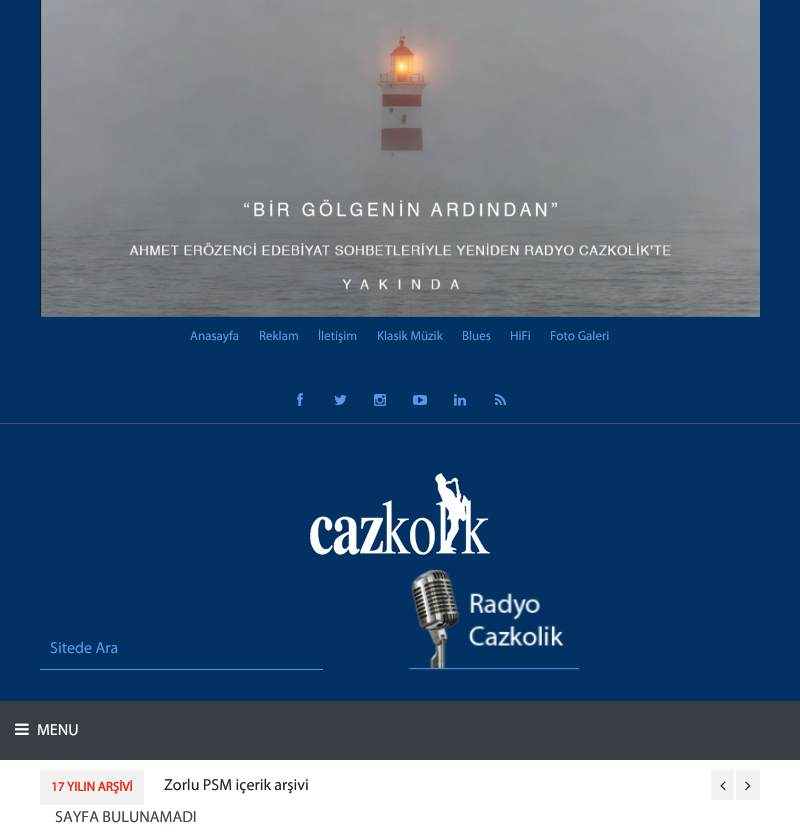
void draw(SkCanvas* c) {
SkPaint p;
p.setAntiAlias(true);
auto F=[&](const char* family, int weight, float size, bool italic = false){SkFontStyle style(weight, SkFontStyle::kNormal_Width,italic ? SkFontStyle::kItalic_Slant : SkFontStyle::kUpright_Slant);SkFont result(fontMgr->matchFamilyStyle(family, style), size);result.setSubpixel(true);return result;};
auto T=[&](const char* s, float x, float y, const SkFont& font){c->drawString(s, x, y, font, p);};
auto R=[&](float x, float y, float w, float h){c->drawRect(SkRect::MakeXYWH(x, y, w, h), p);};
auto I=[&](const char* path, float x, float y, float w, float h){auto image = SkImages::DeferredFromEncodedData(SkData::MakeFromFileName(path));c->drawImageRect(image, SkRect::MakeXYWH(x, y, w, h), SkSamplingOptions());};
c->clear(0xffffffff);
p.setColor(0xff023263);
R(0,0,800,701);
p.setColor(0xff4b5158);
R(0,423,800,1);
I("1.png",40,0,720,317);
auto f1 = F("Myriad",400,13);
p.setColor(0xff5699e4);
T("Anasayfa",190,340,f1);
T("Reklam",259,340,f1);
T("İletişim",318,340,f1);
T("Klasik Müzik",377,340,f1);
T("Blues",462,340,f1);
T("HiFi",510,340,f1);
T("Foto Galeri",550,340,f1);
I("2.png",297,393,6,13);
I("3.png",334,395,13,10);
I("4.png",374,394,12,12);
I("5.png",413,395,14,10);
I("6.png",454,394,12,12);
I("7.png",495,394,11,11);
I("8.png",310,473,180,82);
R(40,669,283,1);
auto f2 = F("Myriad",400,16);
T("Sitede Ara",50,653,f2);
I("9.png",408,569,171,101);
p.setColor(0xff383e44);
R(0,701,800,59);
I("10.png",15,723,14,12);
p.setColor(0xffffffff);
T("MENU",37,735,f2);
p.setColor(0xfff2f2f2);
R(40,770,104,35);
auto f3 = F("Myriad",700,13);
p.setColor(0xffec2913);
T("17 YILIN ARŞİVİ",51,791,f3);
p.setColor(0xff212428);
T("Zorlu PSM içerik arşivi",164,790,f2);
p.setColor(0xfff2f2f2);
R(711,770,23,30);
I("11.png",720,781,6,10);
R(736,770,24,30);
I("12.png",745,781,6,10);
p.setColor(0xff3e454c);
T("SAYFA BULUNAMADI",55,822,f2);
}
